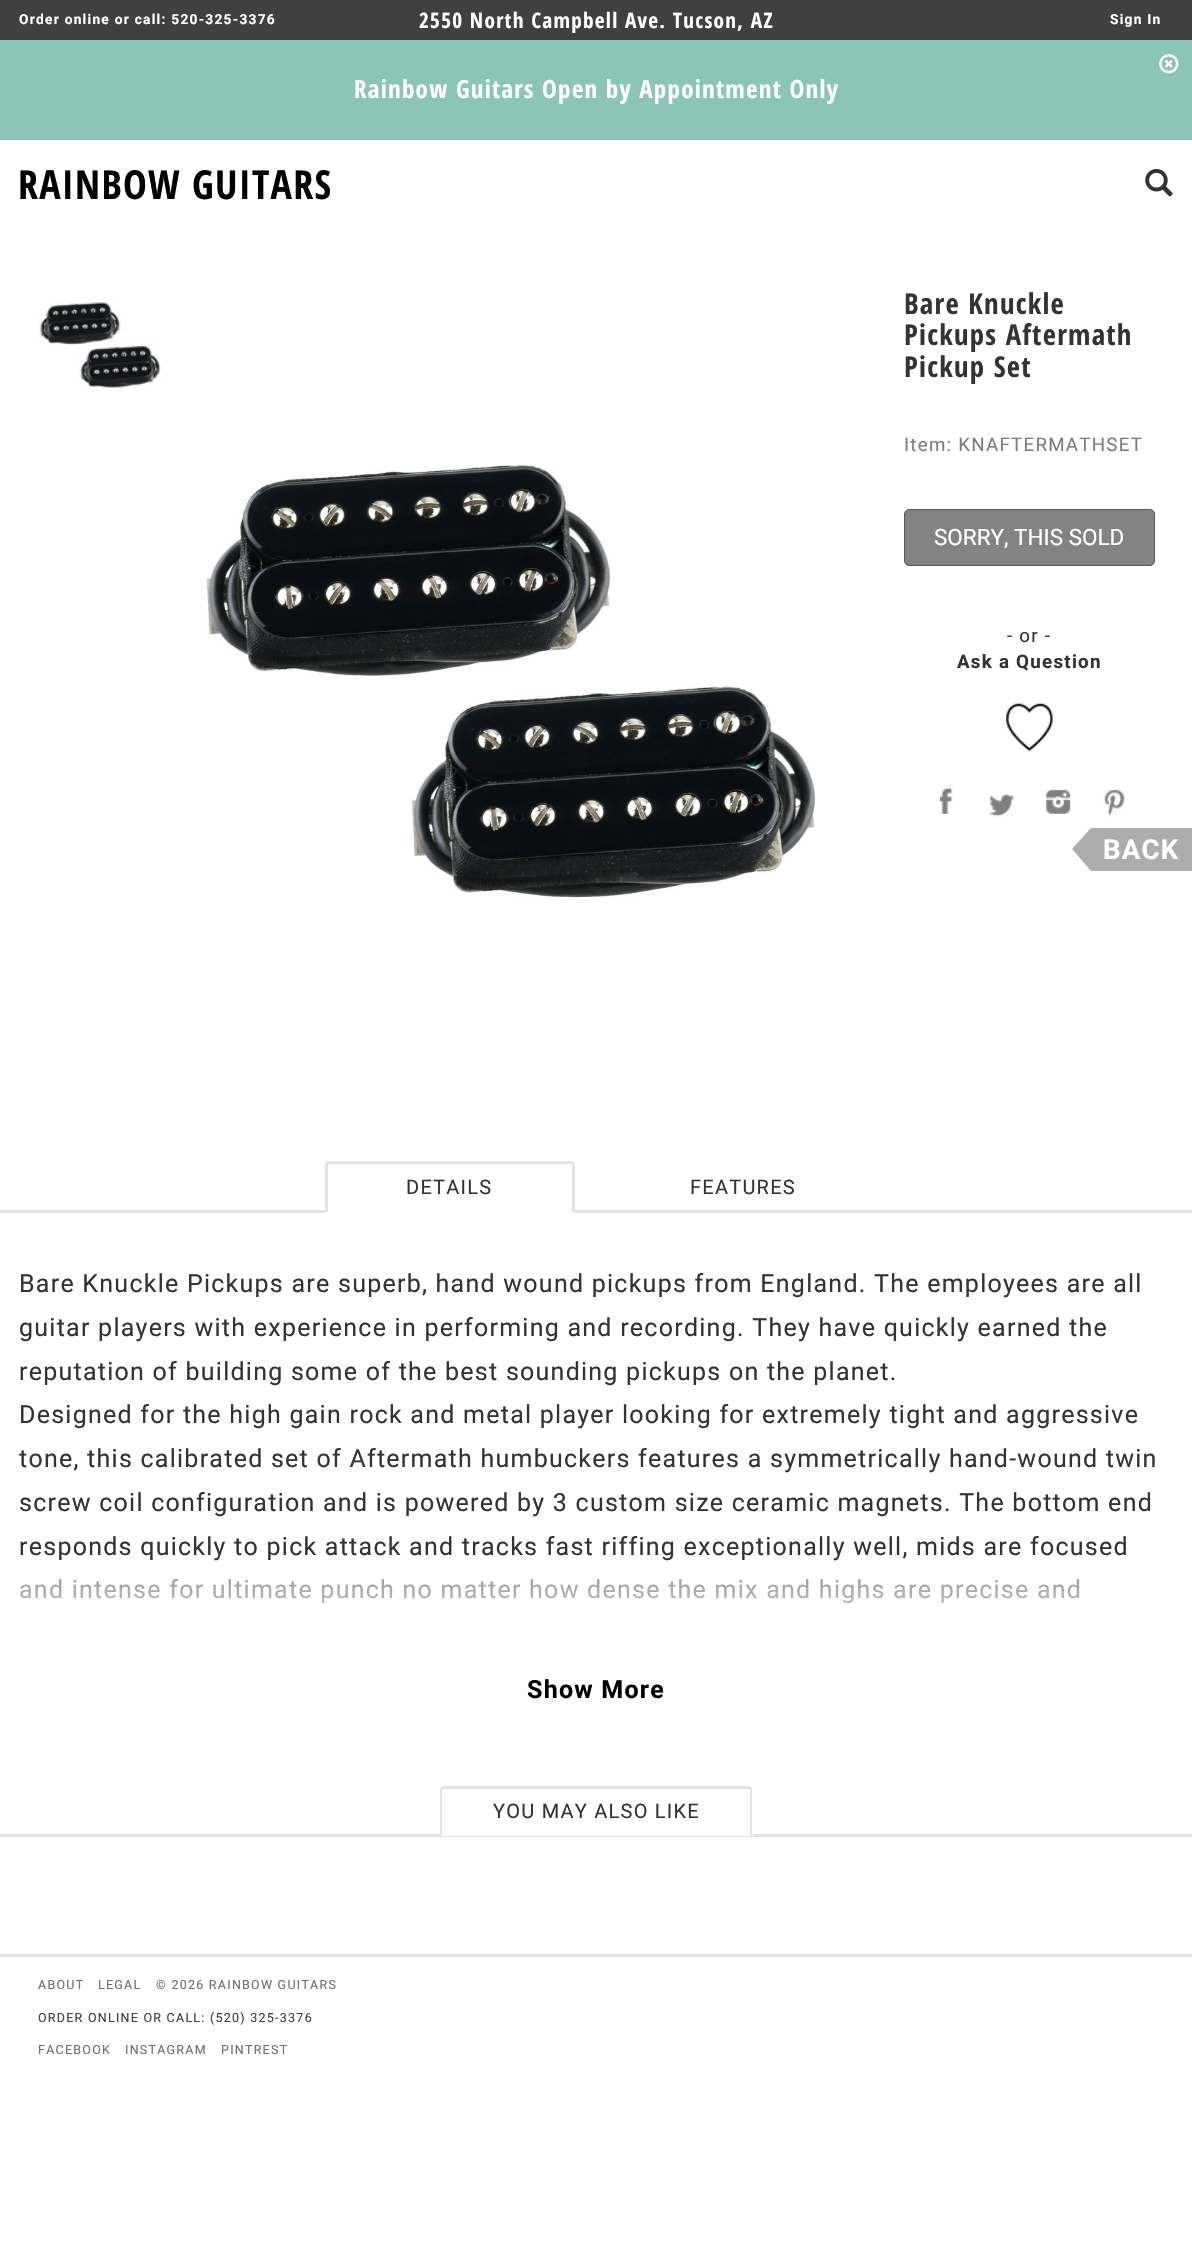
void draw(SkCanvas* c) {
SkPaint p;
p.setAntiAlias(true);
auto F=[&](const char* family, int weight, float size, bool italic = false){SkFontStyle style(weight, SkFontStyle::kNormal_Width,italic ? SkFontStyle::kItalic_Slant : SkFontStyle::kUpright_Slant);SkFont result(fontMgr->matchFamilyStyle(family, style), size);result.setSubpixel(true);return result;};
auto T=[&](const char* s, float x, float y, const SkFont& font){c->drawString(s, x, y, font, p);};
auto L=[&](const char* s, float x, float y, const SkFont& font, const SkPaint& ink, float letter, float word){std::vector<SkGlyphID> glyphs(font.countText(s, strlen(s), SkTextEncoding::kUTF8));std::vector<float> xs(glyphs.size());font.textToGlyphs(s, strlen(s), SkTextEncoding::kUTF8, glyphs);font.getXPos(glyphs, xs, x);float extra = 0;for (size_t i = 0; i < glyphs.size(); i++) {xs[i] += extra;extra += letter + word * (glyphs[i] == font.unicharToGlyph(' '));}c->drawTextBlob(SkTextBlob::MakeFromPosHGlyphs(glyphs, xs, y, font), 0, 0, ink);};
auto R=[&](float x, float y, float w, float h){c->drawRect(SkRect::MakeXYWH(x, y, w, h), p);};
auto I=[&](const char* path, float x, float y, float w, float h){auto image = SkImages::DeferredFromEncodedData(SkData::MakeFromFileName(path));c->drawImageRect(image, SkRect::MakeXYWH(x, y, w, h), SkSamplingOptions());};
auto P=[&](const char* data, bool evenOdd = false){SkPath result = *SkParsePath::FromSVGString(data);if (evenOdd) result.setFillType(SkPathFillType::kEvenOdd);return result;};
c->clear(0xffffffff);
p.setColor(0xff404040);
R(0,0,1192,40);
auto f1 = F("Roboto",700,13.75);
p.setColor(0xffffffff);
L("Order online or call: 520-325-3376",19,24,f1,p,1.25,0);
auto f2 = F("Open Sans Condensed",700,21.25);
L("2550 North Campbell Ave. Tucson, AZ",419,28,f2,p,1.25,0);
L("Sign In",1110,24,f1,p,1.25,0);
p.setColor(0xff8bc5b9);
R(0,40,1192,100);
I("1.png",1159,54,20,20);
auto f3 = F("Open Sans Condensed",700,25);
p.setColor(0xffffffff);
L("Rainbow Guitars Open by Appointment Only",354,98,f3,p,1.25,0);
auto f4 = F("Open Sans Condensed",700,40);
p.setColor(0xff000000);
L("RAINBOW GUITARS",18,199,f4,p,1.25,0);
I("2.png",1145,169,28,28);
I("3.png",38,302,123,88);
auto f5 = F("Open Sans Condensed",700,28.75);
p.setColor(0xff333333);
L("Bare Knuckle",904,314,f5,p,1.25,0);
L("Pickups Aftermath",904,345,f5,p,1.25,0);
L("Pickup Set",904,377,f5,p,1.25,0);
auto f6 = F("Roboto",400,18.75);
p.setColor(0xff7c7c7c);
L("Item: KNAFTERMATHSET",904,451,f6,p,1.25,0);
p.setColor(0xff838383);
c->drawRoundRect(SkRect::MakeXYWH(904.5,509.5,250,56),4.5,4.5,p);
p.setStroke(true);
p.setStrokeWidth(1);
p.setColor(0xff595959);
c->drawRoundRect(SkRect::MakeXYWH(904.5,509.5,250,56),4.5,4.5,p);
auto f7 = F("Roboto",400,22.5);
p.setStroke(false);
p.setColor(0xffffffff);
T("SORRY, THIS SOLD",934,545,f7);
p.setColor(0xff333333);
L("- or -",1007,642,f6,p,1.25,0);
auto f8 = F("Roboto",700,18.75);
L("Ask a Question",957,668,f8,p,1.25,0);
I("4.png",1006,703,47,49);
I("5.png",939,785,15,29);
I("6.png",989,793,26,24);
I("7.png",1044,789,27,25);
I("8.png",1103,789,23,28);
I("9.png",205,464,611,434);
p.setColor(0xffadadad);
R(1091,828,101,43);
c->drawPath(P("M1091 828v43l-19-22z"),p);
auto f9 = F("Roboto",700,27.5);
p.setColor(0xffffffff);
L("BACK",1103,859,f9,p,1.25,0);
p.setColor(0xffe3e3e3);
R(0,1210,1192,3);
p.setColor(0xffffffff);
c->drawPath(P("M329 1161h242c2 0 4 2 4 4v48h-250v-48c0-2 2-4 4-4z"),p);
p.setColor(0xffe3e3e3);
c->drawPath(P("M329 1161h242c2 0 4 2 4 4v47h-250v-47c0-2 2-4 4-4zm0 3h242c1 0 1 0 1 1v47h-244v-48z",true),p);
auto f10 = F("Roboto",400,20);
p.setColor(0xff333333);
L("DETAILS",406,1194,f10,p,1.25,0);
L("FEATURES",690,1194,f10,p,1.25,0);
auto f11 = F("Roboto",400,25);
L("Bare Knuckle Pickups are superb, hand wound pickups from England. The employees are all",19,1292,f11,p,1.25,0);
L("guitar players with experience in performing and recording. They have quickly earned the",19,1336,f11,p,1.25,0);
L("reputation of building some of the best sounding pickups on the planet.",19,1380,f11,p,1.25,0);
L("Designed for the high gain rock and metal player looking for extremely tight and aggressive",19,1423,f11,p,1.25,0);
L("tone, this calibrated set of Aftermath humbuckers features a symmetrically hand-wound twin",19,1467,f11,p,1.25,0);
L("screw coil configuration and is powered by 3 custom size ceramic magnets. The bottom end",19,1511,f11,p,1.25,0);
L("responds quickly to pick attack and tracks fast riffing exceptionally well, mids are focused",19,1555,f11,p,1.25,0);
L("and intense for ultimate punch no matter how dense the mix and highs are precise and",19,1598,f11,p,1.25,0);
{
const SkColor colors[] = {0x80ffffff,0xffffffff};
const float stops[] = {0,1};
const SkPoint ends[] = {{596,1575}, {596,1663}};
p.setShader(SkGradientShader::MakeLinear(ends, colors, stops, 2, SkTileMode::kClamp));
p.setAlpha(255);
}
R(20,1579,1059,25);
auto f12 = F("Roboto",700,25);
p.setShader(nullptr);
p.setColor(0xff000000);
L("Show More",527,1698,f12,p,1.25,0);
p.setColor(0xffe3e3e3);
R(0,1834,1192,3);
p.setColor(0xffffffff);
c->drawPath(P("M444 1786h305c2 0 4 2 4 4v46h-313v-46c0-2 2-4 4-4z"),p);
p.setColor(0xffe3e3e3);
c->drawPath(P("M444 1786h305c2 0 3 2 3 4v46h-312v-46c0-2 2-4 4-4zm0 3h305c0 0 1 0 1 1v46h-308v-46c0-1 1-1 2-1z",true),p);
p.setColor(0xff333333);
L("YOU MAY ALSO LIKE",493,1818,f10,p,1.25,0);
p.setColor(0xffe3e3e3);
R(0,1954,1192,3);
auto f13 = F("Roboto",400,12.5);
p.setColor(0xff6f6f6f);
L("ABOUT",38,1989,f13,p,1.25,0);
L("LEGAL",98,1989,f13,p,1.25,0);
L("© 2026 RAINBOW GUITARS",156,1989,f13,p,1.25,0);
p.setColor(0xff3f3f3f);
L("ORDER ONLINE OR CALL: (520) 325-3376",38,2022,f13,p,1.25,0);
p.setColor(0xff6f6f6f);
L("FACEBOOK",38,2054,f13,p,1.25,0);
L("INSTAGRAM",125,2054,f13,p,1.25,0);
L("PINTREST",221,2054,f13,p,1.25,0);
}
